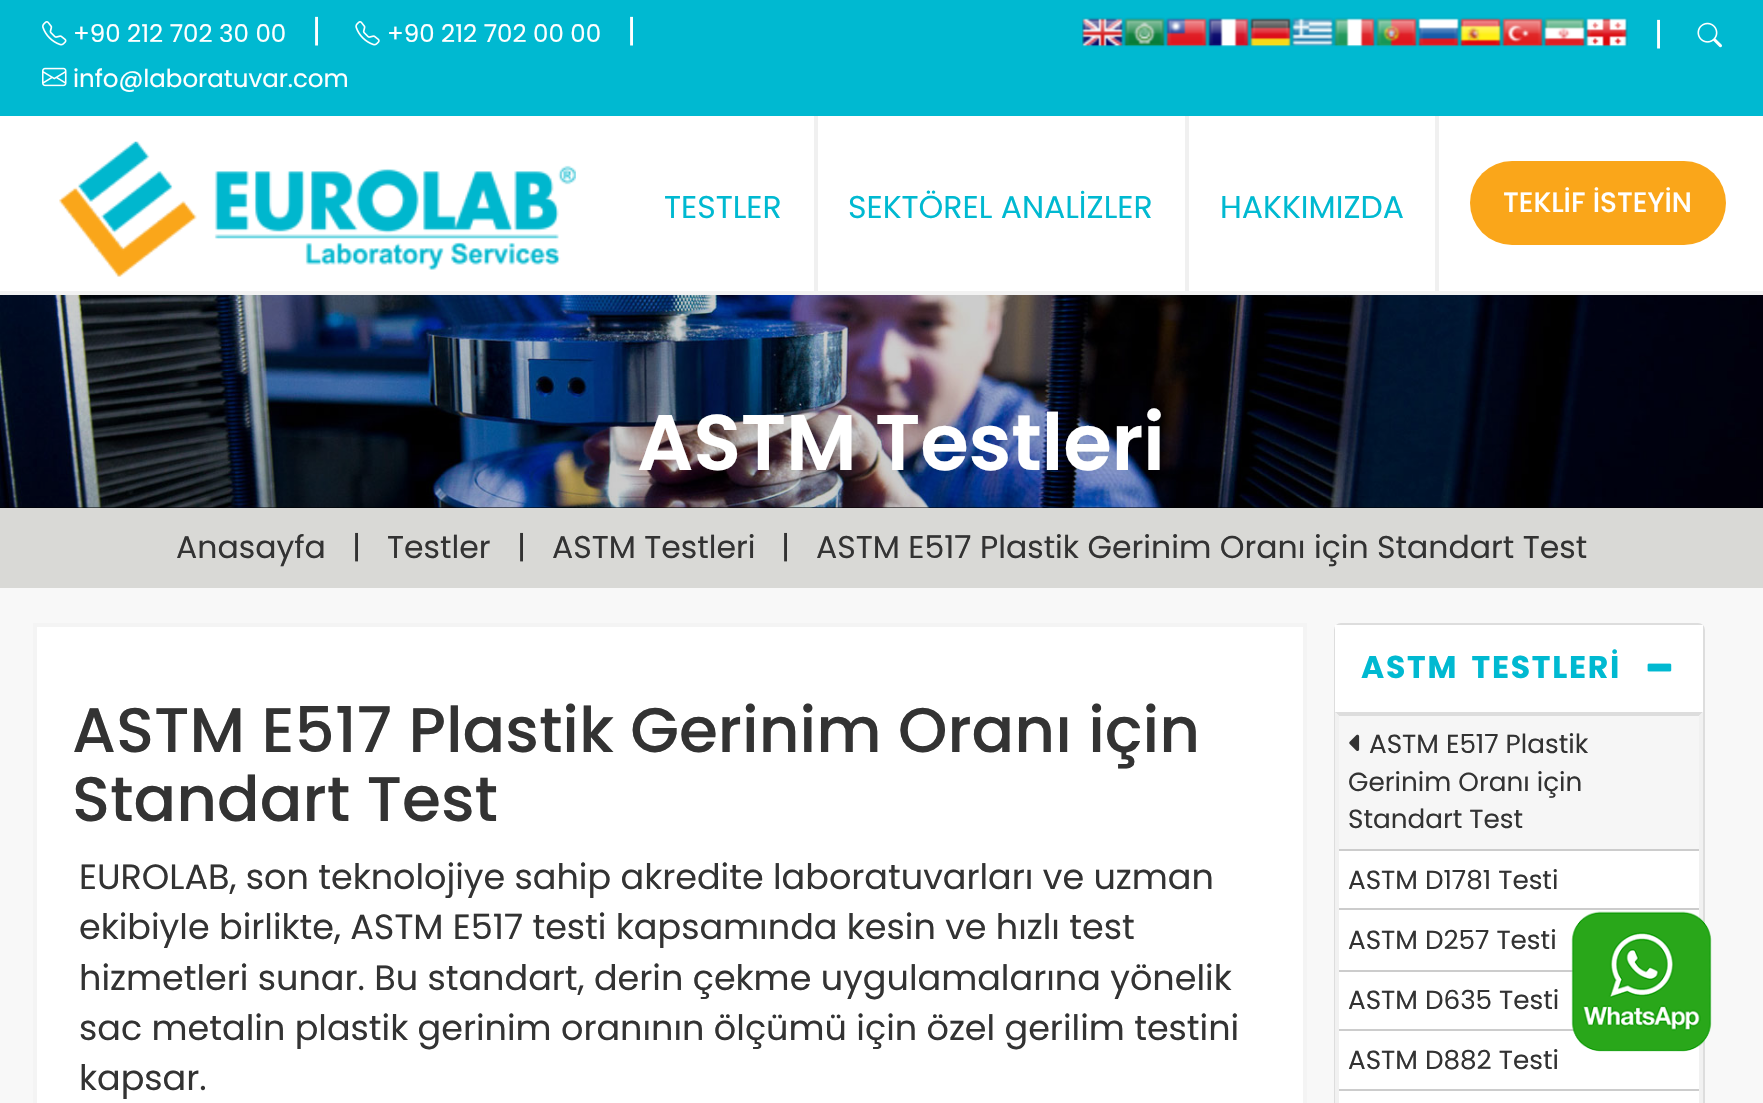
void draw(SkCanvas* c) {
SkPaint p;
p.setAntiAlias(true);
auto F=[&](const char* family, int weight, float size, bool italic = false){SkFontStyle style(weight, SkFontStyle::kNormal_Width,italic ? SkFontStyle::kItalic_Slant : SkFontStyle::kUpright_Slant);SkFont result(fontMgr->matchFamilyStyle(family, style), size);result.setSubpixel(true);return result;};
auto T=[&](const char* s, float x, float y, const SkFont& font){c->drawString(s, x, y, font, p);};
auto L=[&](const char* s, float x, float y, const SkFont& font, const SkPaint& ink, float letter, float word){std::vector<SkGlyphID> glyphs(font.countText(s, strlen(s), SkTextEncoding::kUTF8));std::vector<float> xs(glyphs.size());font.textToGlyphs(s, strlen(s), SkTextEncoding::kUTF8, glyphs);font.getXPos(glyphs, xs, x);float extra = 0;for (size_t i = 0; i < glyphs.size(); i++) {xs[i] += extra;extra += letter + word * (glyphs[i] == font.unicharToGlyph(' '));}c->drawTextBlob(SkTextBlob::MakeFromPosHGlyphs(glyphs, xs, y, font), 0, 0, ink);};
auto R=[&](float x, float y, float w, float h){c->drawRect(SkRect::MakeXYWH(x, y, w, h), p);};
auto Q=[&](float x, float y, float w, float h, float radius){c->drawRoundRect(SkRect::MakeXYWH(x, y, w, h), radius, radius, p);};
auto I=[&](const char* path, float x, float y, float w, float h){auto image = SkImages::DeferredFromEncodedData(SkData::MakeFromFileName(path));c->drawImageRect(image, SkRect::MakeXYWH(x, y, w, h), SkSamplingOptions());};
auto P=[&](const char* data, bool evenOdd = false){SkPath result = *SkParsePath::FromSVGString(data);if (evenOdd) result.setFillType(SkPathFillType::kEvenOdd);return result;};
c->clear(0xfff8f8f8);
p.setColor(0xff00b9d1);
R(0,0,1763,116);
p.setColor(0xfff2f2f2);
R(0,291,1763,4);
I("1.png",42,21,25,25);
auto f1 = F("Poppins",400,24.5);
p.setColor(0xffffffff);
T("+90 212 702 30 00",73,42,f1);
auto f2 = F("Poppins",400,31.5);
T("|",312,42,f2);
I("2.png",355,21,25,25);
T("+90 212 702 00 00",387,42,f1);
T("|",627,42,f2);
I("3.png",42,67,25,20);
T("info@laboratuvar.com",73,87,f1);
I("4.png",1082,17,42,30);
I("5.png",1123,17,43,30);
I("6.png",1165,17,43,30);
I("7.png",1207,17,43,30);
I("8.png",1249,17,43,30);
I("9.png",1291,17,43,30);
I("10.png",1333,17,43,30);
I("11.png",1375,17,43,30);
I("12.png",1417,17,43,30);
I("13.png",1459,17,43,30);
I("14.png",1501,17,43,30);
I("15.png",1543,17,43,30);
I("16.png",1585,17,43,30);
T("|",1654,45,f2);
I("17.png",1697,22,25,26);
R(0,116,1763,175);
I("18.png",59,141,517,136);
p.setColor(0xfff0f0f0);
R(814,116,4,175);
p.setColor(0xff00b9d1);
T("TESTLER",664,218,f2);
p.setColor(0xfff0f0f0);
R(1185,116,4,175);
p.setColor(0xff00b9d1);
T("SEKTÖREL ANALİZLER",848,218,f2);
p.setColor(0xfff0f0f0);
R(1435,116,4,175);
p.setColor(0xff00b9d1);
T("HAKKIMIZDA",1220,218,f2);
p.setColor(0xfffaa61a);
Q(1470,161,256,84,42);
auto f3 = F("Poppins",500,28);
p.setColor(0xffffffff);
T("TEKLİF İSTEYİN",1503,212,f3);
p.setColor(0xff000000);
R(0,507,1763,1);
I("19.png",0,295,1763,213);
auto f4 = F("Poppins",600,78.75);
p.setColor(0xffffffff);
L("ASTM Testleri",637,470,f4,p,-.25,0);
p.setColor(0xffd9d9d6);
R(0,508,1763,80);
p.setColor(0xff333333);
T("Anasayfa",176,558,f2);
T("|",352,558,f2);
T("Testler",387,558,f2);
T("|",517,558,f2);
T("ASTM Testleri",552,558,f2);
T("|",781,558,f2);
T("ASTM E517 Plastik Gerinim Oranı için Standart Test",816,558,f2);
p.setColor(0xffffffff);
c->drawRect(SkRect::MakeXYWH(35,625,1270,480),p);
p.setStroke(true);
p.setStrokeWidth(4);
p.setColor(0xfff4f4f4);
c->drawRect(SkRect::MakeXYWH(35,625,1270,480),p);
auto f5 = F("Poppins",500,63);
p.setStroke(false);
p.setColor(0xff333333);
T("ASTM E517 Plastik Gerinim Oranı için",72,752,f5);
T("Standart Test",72,821,f5);
auto f6 = F("Poppins",400,35);
T("EUROLAB, son teknolojiye sahip akredite laboratuvarları ve uzman",79,889,f6);
T("ekibiyle birlikte, ASTM E517 testi kapsamında kesin ve hızlı test",79,939,f6);
T("hizmetleri sunar. Bu standart, derin çekme uygulamalarına yönelik",79,990,f6);
T("sac metalin plastik gerinim oranının ölçümü için özel gerilim testini",79,1040,f6);
T("kapsar.",79,1090,f6);
p.setColor(0xffffffff);
c->drawRoundRect(SkRect::MakeXYWH(1335,624,369,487),6,6,p);
p.setStroke(true);
p.setStrokeWidth(2);
p.setColor(0xffdddddd);
c->drawRoundRect(SkRect::MakeXYWH(1335,624,369,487),6,6,p);
p.setStroke(false);
p.setColor(0xffffffff);
R(1335,625,368,87);
auto f7 = F("Poppins",700,31.5);
p.setColor(0xff00b9d1);
L("ASTM TESTLERİ",1361,678,f7,p,1.75,5);
I("20.png",1647,663,25,9);
p.setColor(0xffdddddd);
c->drawPath(P("M1335 712h368l-4 4h-360z"),p);
p.setColor(0xfff1f1f1);
c->drawPath(P("M1703 712v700l-4-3v-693z"),p);
c->drawPath(P("M1335 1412v-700l4 4v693z"),p);
p.setColor(0xfff6f6f6);
R(1339,716,360,133);
p.setColor(0xffcccccc);
R(1339,849,360,2);
I("21.png",1349,734,11,17);
auto f8 = F("Poppins",400,26.25);
p.setColor(0xff333333);
T("ASTM E517 Plastik",1369,753,f8);
T("Gerinim Oranı için",1348,791,f8);
T("Standart Test",1348,828,f8);
p.setColor(0xffcccccc);
R(1339,908,360,2);
p.setColor(0xff333333);
T("ASTM D1781 Testi",1348,889,f8);
p.setColor(0xffcccccc);
R(1339,970,234,2);
p.setColor(0xff333333);
T("ASTM D257 Testi",1348,949,f8);
p.setColor(0xffcccccc);
R(1339,1029,351,2);
p.setColor(0xff333333);
T("ASTM D635 Testi",1348,1009,f8);
p.setColor(0xffcccccc);
R(1339,1089,360,2);
p.setColor(0xff333333);
T("ASTM D882 Testi",1348,1069,f8);
I("22.png",1571,911,141,141);
}
